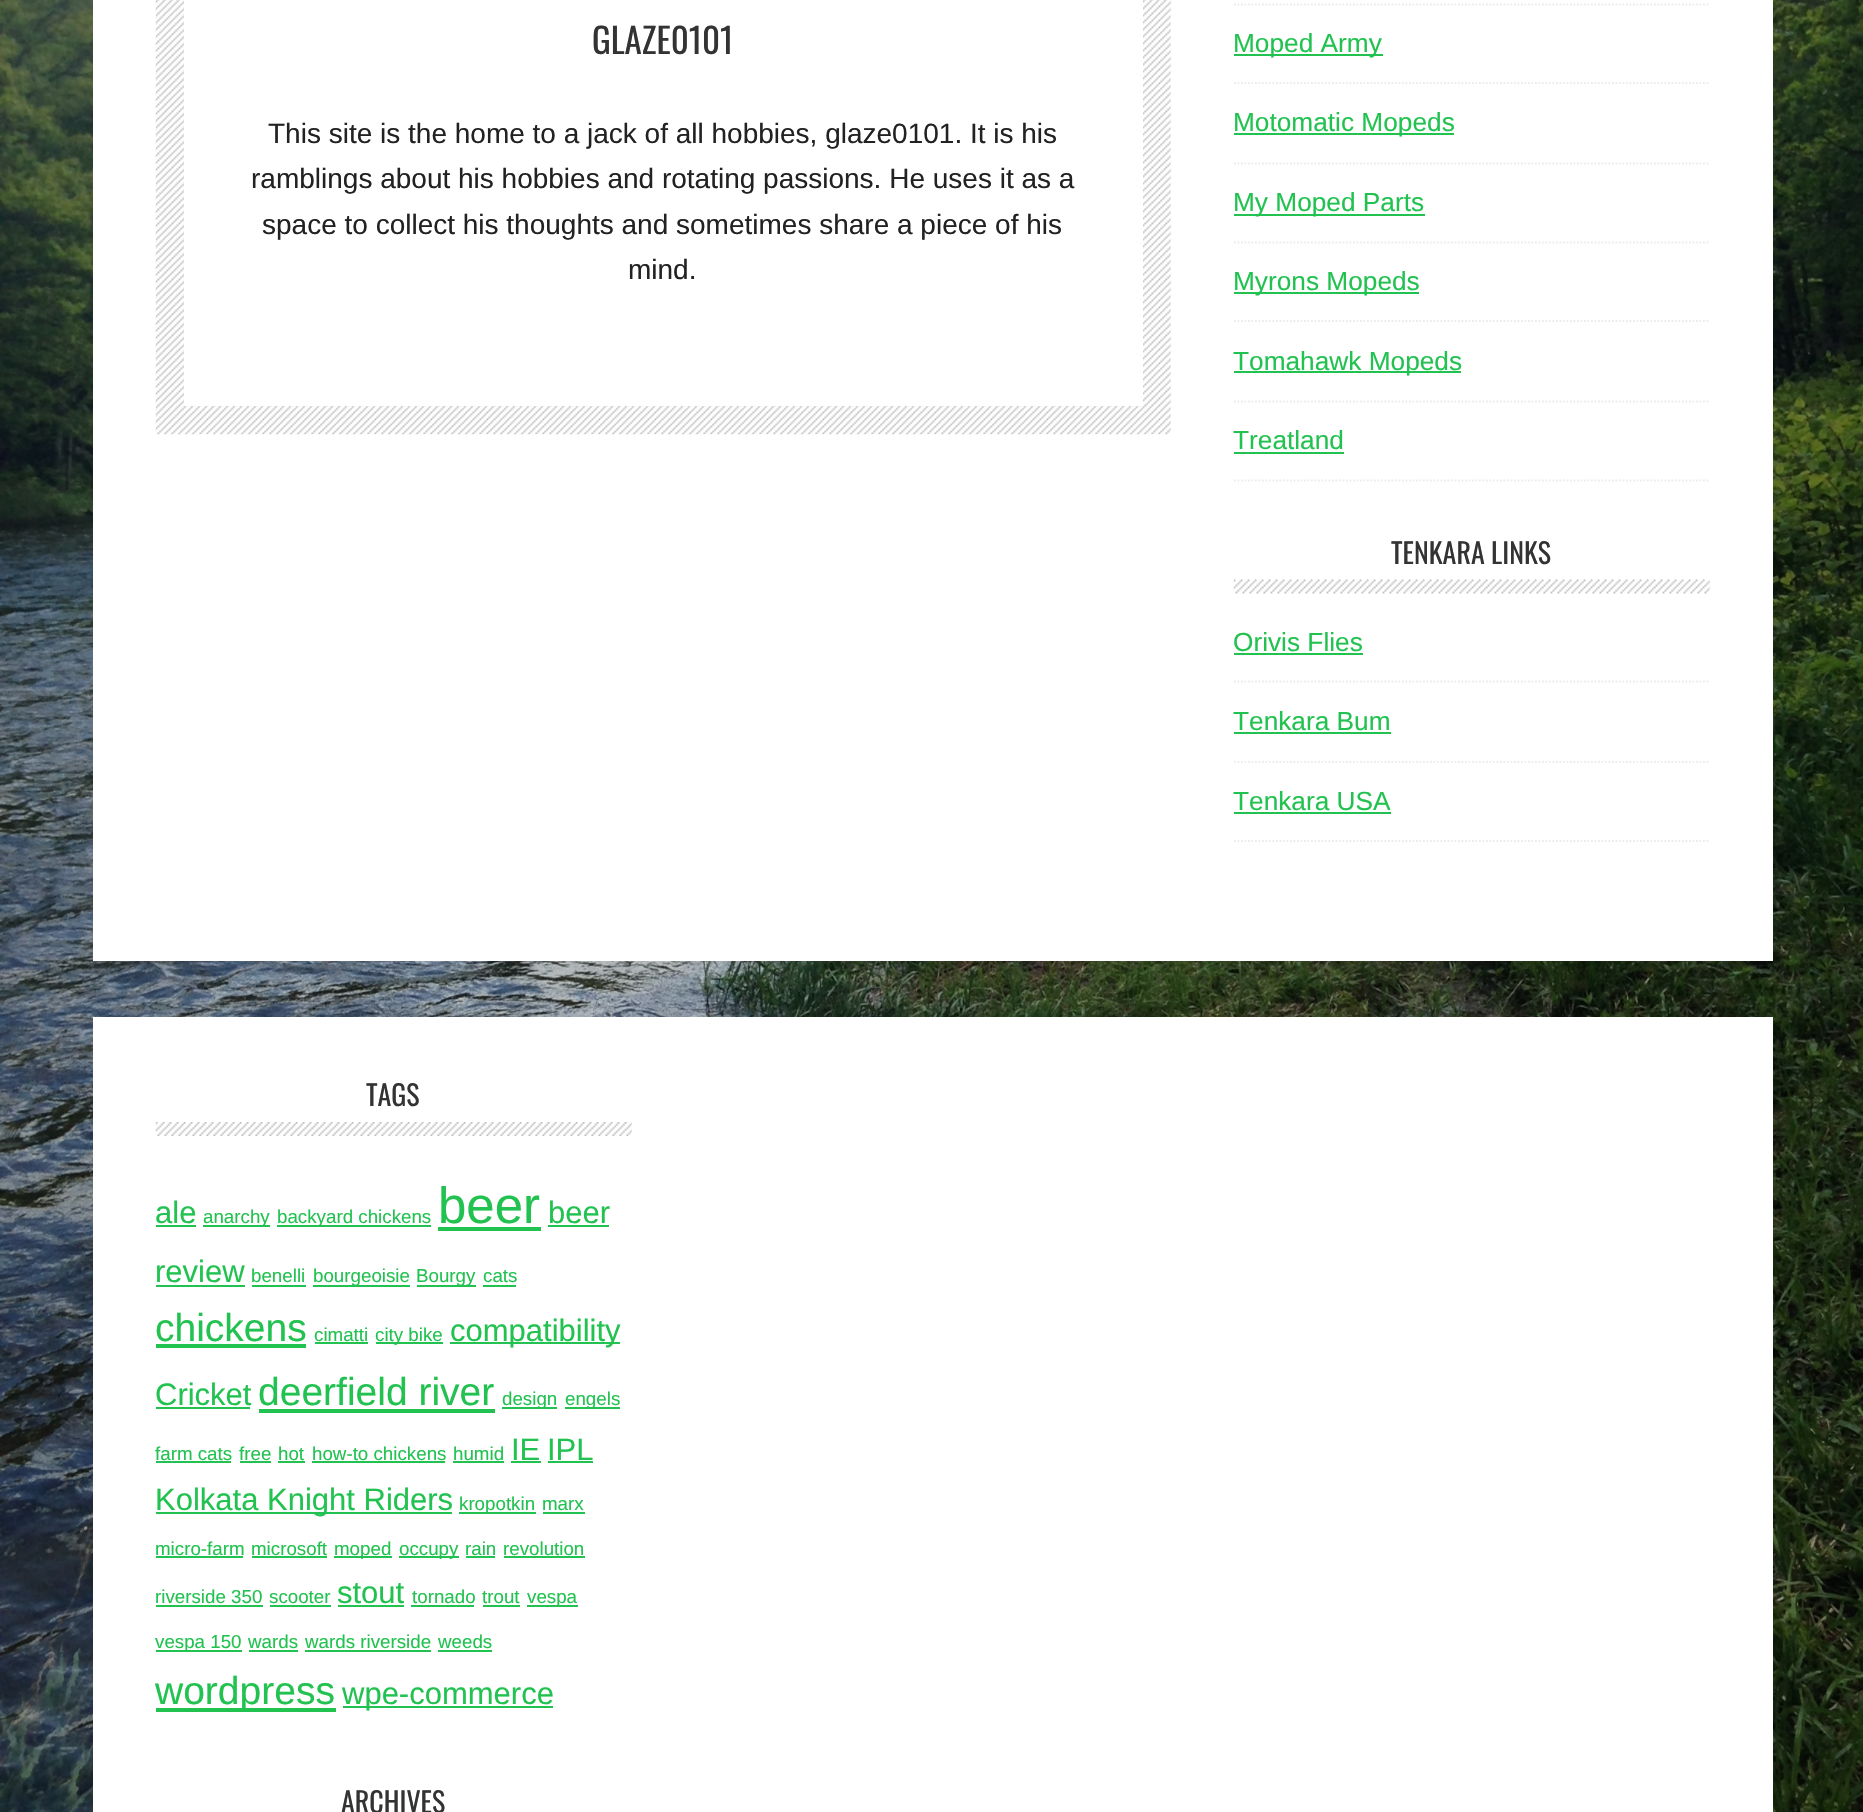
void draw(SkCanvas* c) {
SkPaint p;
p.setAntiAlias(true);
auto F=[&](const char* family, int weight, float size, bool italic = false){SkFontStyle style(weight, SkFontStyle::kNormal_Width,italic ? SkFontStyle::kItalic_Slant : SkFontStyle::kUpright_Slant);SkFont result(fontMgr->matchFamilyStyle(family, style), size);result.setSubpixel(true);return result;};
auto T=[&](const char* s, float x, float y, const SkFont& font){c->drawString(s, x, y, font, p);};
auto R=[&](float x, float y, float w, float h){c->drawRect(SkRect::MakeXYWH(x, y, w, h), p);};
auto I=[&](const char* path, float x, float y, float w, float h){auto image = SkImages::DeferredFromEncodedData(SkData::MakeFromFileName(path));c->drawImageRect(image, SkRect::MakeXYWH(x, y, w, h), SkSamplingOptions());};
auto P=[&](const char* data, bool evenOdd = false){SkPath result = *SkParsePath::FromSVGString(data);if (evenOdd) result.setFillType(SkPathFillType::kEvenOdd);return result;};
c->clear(0xffffffff);
I("1.png",0,0,1863,1812);
p.setColor(0xffffffff);
R(93,0,1680,961);
I("2.png",155,0,1016,435);
R(184,0,959,406);
auto f1 = F("Oswald",400,35);
p.setColor(0xff333333);
T("GLAZE0101",592,54,f1);
auto f2 = F("Liberation Sans",400,28);
p.setColor(0xff222222);
T("This site is the home to a jack of all hobbies, glaze0101. It is his",268,143,f2);
T("ramblings about his hobbies and rotating passions. He uses it as a",251,188,f2);
T("space to collect his thoughts and sometimes share a piece of his",262,234,f2);
T("mind.",628,279,f2);
p.setStroke(true);
p.setStrokeWidth(1.8);
p.setColor(0xffececec);
p.setPathEffect(SkDashPathEffect::Make({{1.75f,1.75f}}, 0));
c->drawPath(P("M1234 4.5h476"),p);
p.setPathEffect(nullptr);
p.setPathEffect(SkDashPathEffect::Make({{1.75f,1.75f}}, 0));
c->drawPath(P("M1234 83h476"),p);
p.setPathEffect(nullptr);
p.setStroke(false);
p.setColor(0xff21c250);
R(1234,54,149,2);
auto f3 = F("Liberation Sans",400,26.25);
T("Moped Army",1233,52,f3);
p.setStroke(true);
p.setColor(0xffececec);
p.setPathEffect(SkDashPathEffect::Make({{1.75f,1.75f}}, 0));
c->drawPath(P("M1234 163.5h476"),p);
p.setPathEffect(nullptr);
p.setStroke(false);
p.setColor(0xff21c250);
R(1234,133,220,2);
T("Motomatic Mopeds",1233,131,f3);
p.setStroke(true);
p.setColor(0xffececec);
p.setPathEffect(SkDashPathEffect::Make({{1.75f,1.75f}}, 0));
c->drawPath(P("M1234 242.5h476"),p);
p.setPathEffect(nullptr);
p.setStroke(false);
p.setColor(0xff21c250);
R(1234,214,191,2);
T("My Moped Parts",1233,211,f3);
p.setStroke(true);
p.setColor(0xffececec);
p.setPathEffect(SkDashPathEffect::Make({{1.75f,1.75f}}, 0));
c->drawPath(P("M1234 321h476"),p);
p.setPathEffect(nullptr);
p.setStroke(false);
p.setColor(0xff21c250);
R(1234,292,185,2);
T("Myrons Mopeds",1233,290,f3);
p.setStroke(true);
p.setColor(0xffececec);
p.setPathEffect(SkDashPathEffect::Make({{1.75f,1.75f}}, 0));
c->drawPath(P("M1234 401.5h476"),p);
p.setPathEffect(nullptr);
p.setStroke(false);
p.setColor(0xff21c250);
R(1234,371,227,2);
T("Tomahawk Mopeds",1233,370,f3);
p.setStroke(true);
p.setColor(0xffececec);
p.setPathEffect(SkDashPathEffect::Make({{1.75f,1.75f}}, 0));
c->drawPath(P("M1234 480.5h476"),p);
p.setPathEffect(nullptr);
p.setStroke(false);
p.setColor(0xff21c250);
T("Treatland",1233,449,f3);
R(1234,452,110,2);
I("3.png",1233,579,477,15);
auto f4 = F("Oswald",400,28);
p.setColor(0xff333333);
T("TENKARA LINKS",1391,564,f4);
p.setStroke(true);
p.setColor(0xffececec);
p.setPathEffect(SkDashPathEffect::Make({{1.75f,1.75f}}, 0));
c->drawPath(P("M1234 681.5h476"),p);
p.setPathEffect(nullptr);
p.setStroke(false);
p.setColor(0xff21c250);
T("Orivis Flies",1233,651,f3);
R(1234,653,129,2);
p.setStroke(true);
p.setColor(0xffececec);
p.setPathEffect(SkDashPathEffect::Make({{1.75f,1.75f}}, 0));
c->drawPath(P("M1234 762h476"),p);
p.setPathEffect(nullptr);
p.setStroke(false);
p.setColor(0xff21c250);
T("Tenkara Bum",1233,730,f3);
R(1234,732,157,2);
p.setStroke(true);
p.setColor(0xffececec);
p.setPathEffect(SkDashPathEffect::Make({{1.75f,1.75f}}, 0));
c->drawPath(P("M1234 841h476"),p);
p.setPathEffect(nullptr);
p.setStroke(false);
p.setColor(0xff21c250);
T("Tenkara USA",1233,810,f3);
R(1234,812,157,2);
p.setColor(0xffffffff);
R(93,1017,1680,795);
I("4.png",155,1122,477,14);
p.setColor(0xff333333);
T("TAGS",366,1106,f4);
auto f5 = F("Liberation Sans",400,31);
p.setColor(0xff21c250);
T("ale",155,1223,f5);
R(156,1225,40,2);
R(203,1225,67,2);
auto f6 = F("Liberation Sans",400,18.75);
T("anarchy",203,1223,f6);
R(277,1225,154,2);
T("backyard chickens",277,1223,f6);
auto f7 = F("Liberation Sans",400,51);
T("beer",438,1223,f7);
R(438,1227,103,4);
T("beer",548,1223,f5);
R(548,1225,61,2);
T("review",155,1282,f5);
R(156,1285,89,2);
T("benelli",251,1282,f6);
R(252,1285,54,2);
R(313,1285,97,2);
T("bourgeoisie",313,1282,f6);
R(417,1285,59,2);
T("Bourgy",416,1282,f6);
T("cats",483,1282,f6);
R(483,1285,33,2);
auto f8 = F("Liberation Sans",400,39);
T("chickens",155,1341,f8);
R(156,1344,150,4);
T("cimatti",314,1341,f6);
R(315,1342,53,2);
R(376,1342,67,2);
T("city bike",375,1341,f6);
R(450,1342,170,2);
T("compatibility",450,1341,f5);
T("Cricket",155,1405,f5);
R(156,1407,94,2);
T("deerfield river",258,1405,f8);
R(259,1409,236,4);
R(502,1407,55,2);
T("design",502,1405,f6);
R(565,1407,55,2);
T("engels",565,1405,f6);
T("farm cats",155,1460,f6);
R(156,1461,75,2);
T("free",239,1460,f6);
R(240,1461,31,2);
T("hot",278,1460,f6);
R(278,1461,27,2);
T("how-to chickens",312,1460,f6);
R(312,1461,133,2);
T("humid",453,1460,f6);
R(453,1461,51,2);
T("IE",511,1460,f5);
R(511,1461,30,2);
T("IPL",547,1460,f5);
R(548,1461,45,2);
R(156,1512,296,2);
T("Kolkata Knight Riders",155,1510,f5);
R(459,1512,77,2);
T("kropotkin",459,1510,f6);
T("marx",542,1510,f6);
R(543,1512,42,2);
T("micro-farm",155,1555,f6);
R(156,1556,87,2);
T("microsoft",251,1555,f6);
R(252,1556,75,2);
R(334,1556,58,2);
T("moped",334,1555,f6);
R(399,1556,60,2);
T("occupy",399,1555,f6);
T("rain",465,1555,f6);
R(466,1556,29,2);
T("revolution",503,1555,f6);
R(504,1556,81,2);
T("riverside 350",155,1603,f6);
R(156,1605,107,2);
T("scooter",269,1603,f6);
R(270,1605,61,2);
T("stout",337,1603,f5);
R(338,1605,66,2);
T("tornado",412,1603,f6);
R(411,1605,63,2);
T("trout",482,1603,f6);
R(483,1605,37,2);
R(527,1605,51,2);
T("vespa",527,1603,f6);
R(156,1650,86,2);
T("vespa 150",155,1648,f6);
T("wards",248,1648,f6);
R(249,1650,49,2);
T("wards riverside",305,1648,f6);
R(305,1650,126,2);
T("weeds",438,1648,f6);
R(438,1650,54,2);
R(156,1708,180,4);
T("wordpress",155,1704,f8);
R(343,1706,210,2);
T("wpe-commerce",342,1704,f5);
p.setColor(0xff333333);
T("ARCHIVES",341,1813,f4);
}
